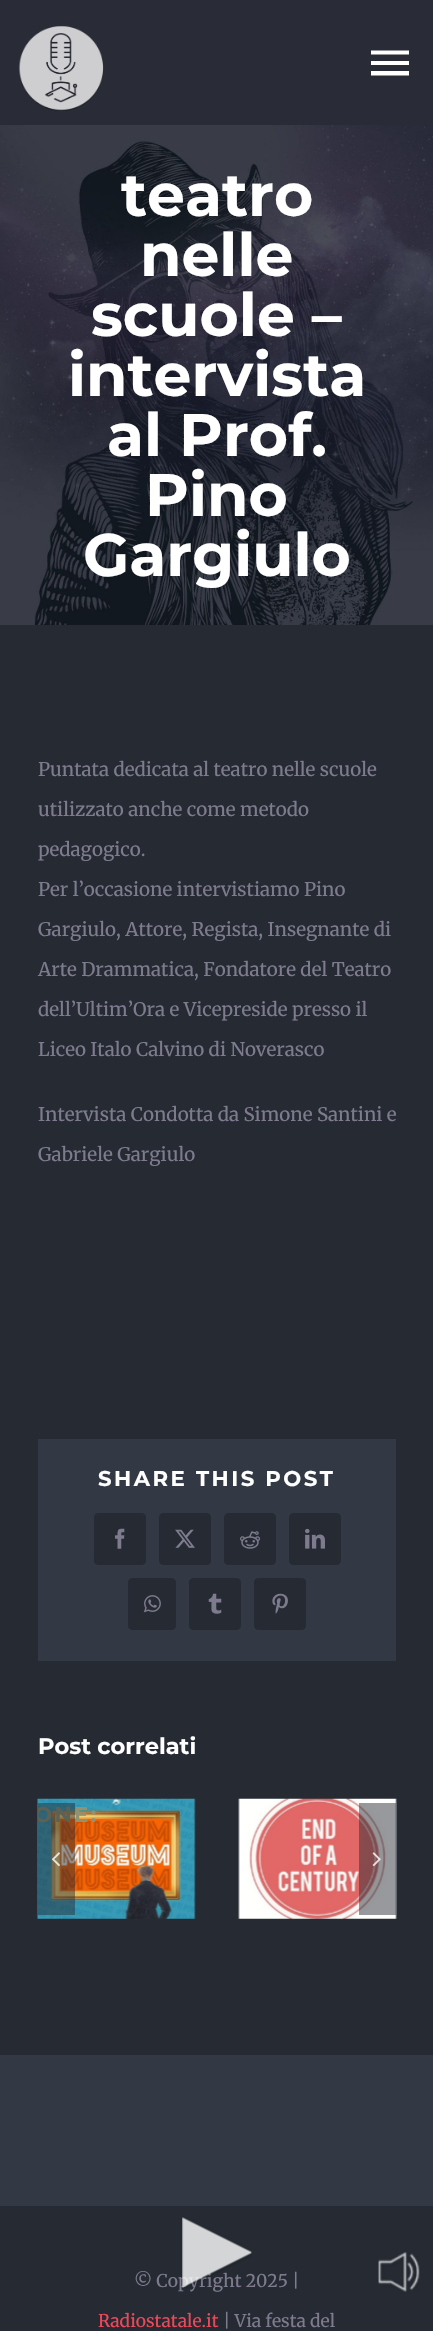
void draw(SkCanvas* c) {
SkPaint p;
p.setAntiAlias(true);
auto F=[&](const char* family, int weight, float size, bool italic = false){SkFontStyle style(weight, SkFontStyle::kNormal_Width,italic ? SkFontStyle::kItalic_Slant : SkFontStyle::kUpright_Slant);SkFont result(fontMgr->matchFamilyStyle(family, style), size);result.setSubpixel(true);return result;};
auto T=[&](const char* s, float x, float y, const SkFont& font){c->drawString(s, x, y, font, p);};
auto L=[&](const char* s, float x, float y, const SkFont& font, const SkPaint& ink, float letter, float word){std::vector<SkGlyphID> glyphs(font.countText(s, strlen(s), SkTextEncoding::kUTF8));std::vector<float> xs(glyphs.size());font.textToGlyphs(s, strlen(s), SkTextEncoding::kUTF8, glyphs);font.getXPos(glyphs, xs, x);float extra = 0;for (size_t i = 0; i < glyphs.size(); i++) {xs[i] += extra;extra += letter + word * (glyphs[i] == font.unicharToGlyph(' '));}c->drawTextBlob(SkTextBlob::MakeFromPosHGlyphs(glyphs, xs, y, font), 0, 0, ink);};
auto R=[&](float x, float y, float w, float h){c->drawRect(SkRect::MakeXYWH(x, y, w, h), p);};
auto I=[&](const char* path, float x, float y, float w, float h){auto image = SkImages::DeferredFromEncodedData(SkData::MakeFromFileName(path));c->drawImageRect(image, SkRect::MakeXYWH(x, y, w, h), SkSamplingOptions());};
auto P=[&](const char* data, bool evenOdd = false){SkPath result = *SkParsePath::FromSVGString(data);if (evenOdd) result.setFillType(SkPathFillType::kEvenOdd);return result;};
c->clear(0xff252a33);
p.setColor(0xff292b36);
R(0,0,433,125);
I("1.png",18,26,86,85);
p.setColor(0xffffffff);
c->drawPath(P("M371 50.5h38v4h-38zm0 14.5v-4h38v4zm0 10.5v-4.5h38v4.5z"),p);
I("2.png",0,125,433,500);
auto f1 = F("Montserrat",700,60);
T("teatro",121,216,f1);
T("nelle",140,276,f1);
T("scuole –",91,336,f1);
T("intervista",68,396,f1);
T("al Prof.",107,456,f1);
T("Pino",145,516,f1);
T("Gargiulo",83,576,f1);
auto f2 = F("Merriweather",400,18.75);
p.setColor(0xff7d7b8d);
T("Puntata dedicata al teatro nelle scuole",38,776,f2);
T("utilizzato anche come metodo",38,816,f2);
T("pedagogico.",38,856,f2);
T("Per l’occasione intervistiamo Pino",38,896,f2);
T("Gargiulo, Attore, Regista, Insegnante di",38,936,f2);
T("Arte Drammatica, Fondatore del Teatro",38,976,f2);
T("dell’Ultim’Ora e Vicepreside presso il",38,1016,f2);
T("Liceo Italo Calvino di Noverasco",38,1056,f2);
T("Intervista Condotta da Simone Santini e",38,1121,f2);
T("Gabriele Gargiulo",38,1161,f2);
p.setColor(0xff323844);
R(38,1439,358,222);
auto f3 = F("Montserrat",700,21.25);
p.setColor(0xffffffff);
L("SHARE THIS POST",98,1486,f3,p,2.5,0);
p.setColor(0xff252a33);
c->drawRoundRect(SkRect::MakeXYWH(94.5,1513.5,51,51),3.5,3.5,p);
p.setStroke(true);
p.setStrokeWidth(1);
c->drawRoundRect(SkRect::MakeXYWH(94.5,1513.5,51,51),3.5,3.5,p);
I("3.png",115,1528,10,21);
p.setStroke(false);
c->drawRoundRect(SkRect::MakeXYWH(159.5,1513.5,51,51),3.5,3.5,p);
p.setStroke(true);
c->drawRoundRect(SkRect::MakeXYWH(159.5,1513.5,51,51),3.5,3.5,p);
I("4.png",175,1529,20,19);
p.setStroke(false);
c->drawRoundRect(SkRect::MakeXYWH(224.5,1513.5,51,51),3.5,3.5,p);
p.setStroke(true);
c->drawRoundRect(SkRect::MakeXYWH(224.5,1513.5,51,51),3.5,3.5,p);
I("5.png",240,1531,20,18);
p.setStroke(false);
c->drawRoundRect(SkRect::MakeXYWH(289.5,1513.5,51,51),3.5,3.5,p);
p.setStroke(true);
c->drawRoundRect(SkRect::MakeXYWH(289.5,1513.5,51,51),3.5,3.5,p);
I("6.png",305,1528,20,21);
p.setStroke(false);
c->drawRoundRect(SkRect::MakeXYWH(128.5,1578.5,47,51),3.5,3.5,p);
p.setStroke(true);
c->drawRoundRect(SkRect::MakeXYWH(128.5,1578.5,47,51),3.5,3.5,p);
I("7.png",143,1595,18,18);
p.setStroke(false);
c->drawRoundRect(SkRect::MakeXYWH(189.5,1578.5,51,51),3.5,3.5,p);
p.setStroke(true);
c->drawRoundRect(SkRect::MakeXYWH(189.5,1578.5,51,51),3.5,3.5,p);
I("8.png",208,1593,14,21);
p.setStroke(false);
c->drawRoundRect(SkRect::MakeXYWH(254.5,1578.5,51,51),3.5,3.5,p);
p.setStroke(true);
c->drawRoundRect(SkRect::MakeXYWH(254.5,1578.5,51,51),3.5,3.5,p);
I("9.png",272,1593,16,21);
auto f4 = F("Montserrat",700,22.5);
p.setStroke(false);
p.setColor(0xffffffff);
T("Post correlati",38,1754,f4);
I("12.png",37,1798,159,121);
c->save();
c->clipRect(SkRect::MakeXYWH(38,1799,157,120));
p.setColor(0xff909371);
L("ONE:",34,1822,f3,p,2.5,0);
c->restore();
p.setColor(0x7a252a33);
R(38,1803,37,112);
I("10.png",51,1852,9,15);
I("13.png",238,1798,159,121);
R(359,1803,37,112);
I("11.png",372,1852,9,15);
p.setColor(0xff323844);
R(0,2055,433,151);
auto f5 = F("Merriweather",400,17.5);
p.setColor(0xff7d7b8d);
T("© Copyright 2025 |",134,2287,f5);
p.setColor(0xffec4858);
T("Radiostatale.it",98,2327,f5);
p.setColor(0xff7d7b8d);
T("| Via festa del",223,2327,f5);
I("14.png",181,2217,71,71);
I("15.png",378,2252,42,40);
}
